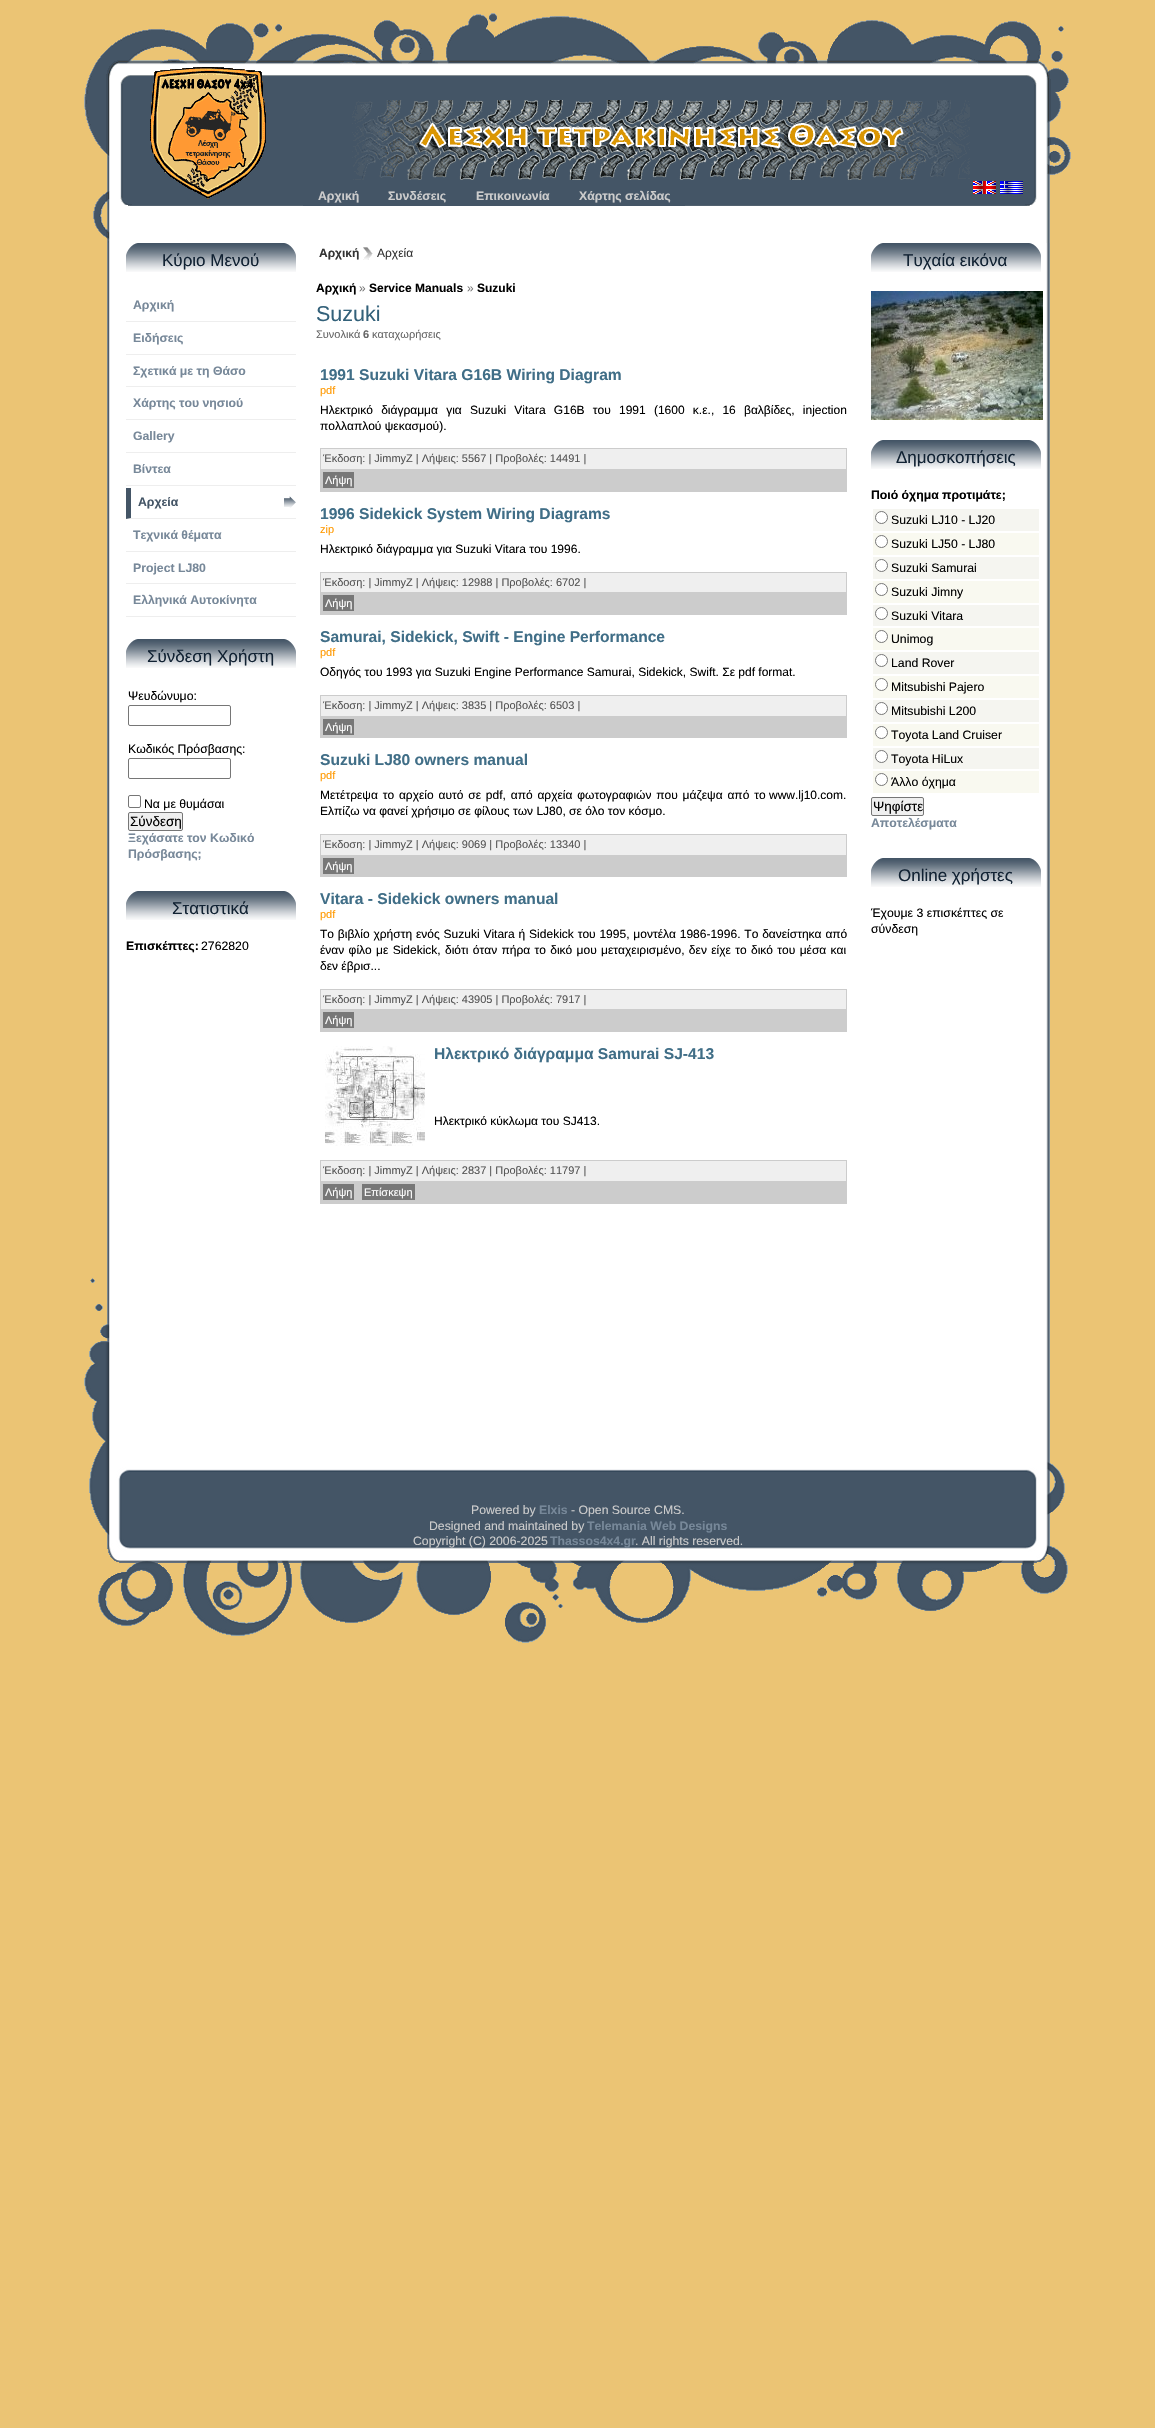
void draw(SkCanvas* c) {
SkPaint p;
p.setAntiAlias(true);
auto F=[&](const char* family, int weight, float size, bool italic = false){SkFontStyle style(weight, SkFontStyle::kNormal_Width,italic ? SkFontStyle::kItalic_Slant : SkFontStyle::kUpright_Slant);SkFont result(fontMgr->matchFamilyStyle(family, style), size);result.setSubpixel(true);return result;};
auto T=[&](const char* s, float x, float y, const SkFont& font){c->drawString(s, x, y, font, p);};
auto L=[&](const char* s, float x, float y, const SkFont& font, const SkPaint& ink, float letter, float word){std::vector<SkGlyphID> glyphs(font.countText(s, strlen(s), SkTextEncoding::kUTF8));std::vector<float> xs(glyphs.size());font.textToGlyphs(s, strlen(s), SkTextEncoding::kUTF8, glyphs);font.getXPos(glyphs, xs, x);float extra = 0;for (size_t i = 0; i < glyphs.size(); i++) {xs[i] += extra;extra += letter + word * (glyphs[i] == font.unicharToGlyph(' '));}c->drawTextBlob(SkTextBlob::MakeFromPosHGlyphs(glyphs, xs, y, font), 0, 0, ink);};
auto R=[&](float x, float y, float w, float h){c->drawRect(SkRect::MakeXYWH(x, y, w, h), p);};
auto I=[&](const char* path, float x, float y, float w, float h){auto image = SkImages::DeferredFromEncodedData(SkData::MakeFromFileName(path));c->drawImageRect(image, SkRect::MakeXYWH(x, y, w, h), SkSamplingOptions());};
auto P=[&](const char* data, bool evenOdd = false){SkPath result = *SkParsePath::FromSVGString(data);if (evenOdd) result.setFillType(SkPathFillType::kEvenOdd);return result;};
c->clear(0xffebc474);
I("1.png",107,243,943,1025);
I("2.png",84,13,987,230);
I("3.png",150,67,116,132);
I("4.png",973,181,23,13);
I("5.png",1000,181,23,13);
p.setColor(0xff445566);
R(303,205,382,1);
auto f1 = F("Liberation Sans",700,12.25);
p.setColor(0xffcccccc);
T("Αρχική",318,200,f1);
T("Συνδέσεις",388,200,f1);
T("Επικοινωνία",476,200,f1);
T("Χάρτης σελίδας",579,200,f1);
I("6.png",126,243,170,29);
auto f2 = F("Liberation Sans",400,17);
p.setColor(0xff112233);
T("Κύριο Μενού",162,266,f2);
p.setColor(0xffeeeeee);
R(126,321,170,1);
p.setColor(0xff778899);
T("Αρχική",133,309,f1);
p.setColor(0xffeeeeee);
R(126,354,170,1);
p.setColor(0xff778899);
T("Ειδήσεις",133,342,f1);
p.setColor(0xffeeeeee);
R(126,386,170,1);
p.setColor(0xff778899);
T("Σχετικά με τη Θάσο",133,375,f1);
p.setColor(0xffeeeeee);
R(126,419,170,1);
p.setColor(0xff778899);
T("Χάρτης του νησιού",133,407,f1);
p.setColor(0xffeeeeee);
R(126,452,170,1);
p.setColor(0xff778899);
T("Gallery",133,440,f1);
p.setColor(0xffeeeeee);
R(126,485,170,1);
p.setColor(0xff778899);
T("Βίντεα",133,473,f1);
I("7.png",284,496,12,12);
p.setColor(0xffeeeeee);
c->drawPath(P("M296 519h-170l5-1h165z"),p);
p.setColor(0xff445566);
c->drawPath(P("M126 519v-31h5v30z"),p);
T("Αρχεία",138,506,f1);
p.setColor(0xffeeeeee);
R(126,551,170,1);
p.setColor(0xff778899);
T("Τεχνικά θέματα",133,539,f1);
p.setColor(0xffeeeeee);
R(126,583,170,1);
p.setColor(0xff778899);
T("Project LJ80",133,572,f1);
p.setColor(0xffeeeeee);
R(126,616,170,1);
p.setColor(0xff778899);
T("Ελληνικά Αυτοκίνητα",133,604,f1);
I("6.png",126,639,170,29);
p.setColor(0xff112233);
T("Σύνδεση Χρήστη",147,662,f2);
auto f3 = F("Liberation Sans",400,12.25);
p.setColor(0xff000000);
T("Ψευδώνυμο:",128,700,f3);
p.setStroke(true);
p.setStrokeWidth(1);
p.setColor(0xff767676);
c->drawRoundRect(SkRect::MakeXYWH(128.5,705.5,102,20),1.5,1.5,p);
p.setStroke(false);
p.setColor(0xff000000);
T("Κωδικός Πρόσβασης:",128,753,f3);
p.setStroke(true);
p.setColor(0xff767676);
c->drawRoundRect(SkRect::MakeXYWH(128.5,758.5,102,20),1.5,1.5,p);
c->drawRoundRect(SkRect::MakeXYWH(128.5,795.5,12,12),1.5,1.5,p);
p.setStroke(false);
p.setColor(0xff000000);
T("Να με θυμάσαι",144,808,f3);
p.setColor(0xffefefef);
c->drawRoundRect(SkRect::MakeXYWH(128.5,812.5,54,18),1.5,1.5,p);
p.setStroke(true);
p.setColor(0xff767676);
c->drawRoundRect(SkRect::MakeXYWH(128.5,812.5,54,18),1.5,1.5,p);
auto f4 = F("Liberation Sans",400,13.5);
p.setStroke(false);
p.setColor(0xff000000);
T("Σύνδεση",130,826,f4);
p.setColor(0xff778899);
T("Ξεχάσατε τον Κωδικό",128,842,f1);
T("Πρόσβασης;",128,858,f1);
I("6.png",126,891,170,29);
p.setColor(0xff112233);
T("Στατιστικά",172,914,f2);
p.setColor(0xff000000);
T("Επισκέπτες:",126,950,f1);
T("2762820",201,950,f3);
auto f5 = F("Liberation Sans",700,12);
p.setColor(0xff333333);
T("Αρχική",319,257,f5);
I("8.png",363,247,10,13);
auto f6 = F("Liberation Sans",400,12);
T("Αρχεία",377,257,f6);
p.setColor(0xff000000);
T("Αρχική",316,292,f5);
p.setColor(0xff777777);
T("»",359,292,f6);
p.setColor(0xff000000);
T("Service Manuals",369,292,f5);
p.setColor(0xff777777);
T("»",467,292,f6);
p.setColor(0xff000000);
T("Suzuki",477,292,f5);
auto f7 = F("Liberation Sans",400,21.5);
p.setColor(0xff33617a);
T("Suzuki",316,321,f7);
auto f8 = F("Liberation Sans",400,11);
p.setColor(0xff666666);
T("Συνολικά",316,338,f8);
auto f9 = F("Liberation Sans",700,11);
T("6",363,338,f9);
T("καταχωρήσεις",372,338,f8);
auto f10 = F("Liberation Sans",700,15.6);
p.setColor(0xff406e87);
T("1991 Suzuki Vitara G16B Wiring Diagram",320,380,f10);
p.setColor(0xffff9900);
T("pdf",320,394,f8);
p.setColor(0xff000000);
L("Ηλεκτρικό διάγραμμα για Suzuki Vitara G16B του 1991 (1600 κ.ε., 16 βαλβίδες, injection",320,414,f6,p,0,4.9);
T("πολλαπλού ψεκασμού).",320,430,f6);
p.setColor(0xffefefef);
c->drawRect(SkRect::MakeXYWH(320.5,448.5,526,21),p);
p.setStroke(true);
p.setColor(0xffcccccc);
c->drawRect(SkRect::MakeXYWH(320.5,448.5,526,21),p);
p.setStroke(false);
p.setColor(0xff555555);
T("Έκδοση: | JimmyZ | Λήψεις: 5567 | Προβολές: 14491 |",323,462,f8);
p.setColor(0xffcccccc);
R(320,470,527,22);
p.setColor(0xff777777);
R(323,472,31,16);
p.setColor(0xffffffff);
T("Λήψη",325,484,f8);
p.setColor(0xff406e87);
T("1996 Sidekick System Wiring Diagrams",320,519,f10);
p.setColor(0xffff9900);
T("zip",320,533,f8);
p.setColor(0xff000000);
T("Ηλεκτρικό διάγραμμα για Suzuki Vitara του 1996.",320,553,f6);
p.setColor(0xffefefef);
c->drawRect(SkRect::MakeXYWH(320.5,572.5,526,20),p);
p.setStroke(true);
p.setColor(0xffcccccc);
c->drawRect(SkRect::MakeXYWH(320.5,572.5,526,20),p);
p.setStroke(false);
p.setColor(0xff555555);
T("Έκδοση: | JimmyZ | Λήψεις: 12988 | Προβολές: 6702 |",323,586,f8);
p.setColor(0xffcccccc);
R(320,593,527,22);
p.setColor(0xff777777);
R(323,595,31,16);
p.setColor(0xffffffff);
T("Λήψη",325,607,f8);
p.setColor(0xff406e87);
T("Samurai, Sidekick, Swift - Engine Performance",320,642,f10);
p.setColor(0xffff9900);
T("pdf",320,656,f8);
p.setColor(0xff000000);
T("Οδηγός του 1993 για Suzuki Engine Performance Samurai, Sidekick, Swift. Σε pdf format.",320,676,f6);
p.setColor(0xffefefef);
c->drawRect(SkRect::MakeXYWH(320.5,695.5,526,21),p);
p.setStroke(true);
p.setColor(0xffcccccc);
c->drawRect(SkRect::MakeXYWH(320.5,695.5,526,21),p);
p.setStroke(false);
p.setColor(0xff555555);
T("Έκδοση: | JimmyZ | Λήψεις: 3835 | Προβολές: 6503 |",323,709,f8);
p.setColor(0xffcccccc);
R(320,717,527,21);
p.setColor(0xff777777);
R(323,719,31,16);
p.setColor(0xffffffff);
T("Λήψη",325,731,f8);
p.setColor(0xff406e87);
T("Suzuki LJ80 owners manual",320,765,f10);
p.setColor(0xffff9900);
T("pdf",320,779,f8);
p.setColor(0xff000000);
L("Μετέτρεψα το αρχείο αυτό σε pdf, από αρχεία φωτογραφιών που μάζεψα από το",320,799,f6,p,0,1.5);
T("www.lj10.com.",769,799,f6);
T("Ελπίζω να φανεί χρήσιμο σε φίλους των LJ80, σε όλο τον κόσμο.",320,815,f6);
p.setColor(0xffefefef);
c->drawRect(SkRect::MakeXYWH(320.5,834.5,526,21),p);
p.setStroke(true);
p.setColor(0xffcccccc);
c->drawRect(SkRect::MakeXYWH(320.5,834.5,526,21),p);
p.setStroke(false);
p.setColor(0xff555555);
T("Έκδοση: | JimmyZ | Λήψεις: 9069 | Προβολές: 13340 |",323,848,f8);
p.setColor(0xffcccccc);
R(320,856,527,21);
p.setColor(0xff777777);
R(323,858,31,16);
p.setColor(0xffffffff);
T("Λήψη",325,870,f8);
p.setColor(0xff406e87);
T("Vitara - Sidekick owners manual",320,904,f10);
p.setColor(0xffff9900);
T("pdf",320,918,f8);
p.setColor(0xff000000);
L("Το βιβλίο χρήστη ενός Suzuki Vitara ή Sidekick του 1995, μοντέλα 1986-1996. Το δανείστηκα από",320,938,f6,p,0,.5);
L("έναν φίλο με Sidekick, διότι όταν πήρα το δικό μου μεταχειρισμένο, δεν είχε το δικό του μέσα και",320,954,f6,p,0,1);
T("δεν έβρισ...",320,970,f6);
p.setColor(0xffefefef);
c->drawRect(SkRect::MakeXYWH(320.5,989.5,526,20),p);
p.setStroke(true);
p.setColor(0xffcccccc);
c->drawRect(SkRect::MakeXYWH(320.5,989.5,526,20),p);
p.setStroke(false);
p.setColor(0xff555555);
T("Έκδοση: | JimmyZ | Λήψεις: 43905 | Προβολές: 7917 |",323,1003,f8);
p.setColor(0xffcccccc);
R(320,1010,527,22);
p.setColor(0xff777777);
R(323,1012,31,16);
p.setColor(0xffffffff);
T("Λήψη",325,1024,f8);
I("9.png",325,1046,100,100);
p.setColor(0xff406e87);
T("Ηλεκτρικό διάγραμμα Samurai SJ-413",434,1059,f10);
p.setColor(0xff000000);
T("Ηλεκτρικό κύκλωμα του SJ413.",434,1125,f6);
p.setColor(0xffefefef);
c->drawRect(SkRect::MakeXYWH(320.5,1160.5,526,21),p);
p.setStroke(true);
p.setColor(0xffcccccc);
c->drawRect(SkRect::MakeXYWH(320.5,1160.5,526,21),p);
p.setStroke(false);
p.setColor(0xff555555);
T("Έκδοση: | JimmyZ | Λήψεις: 2837 | Προβολές: 11797 |",323,1174,f8);
p.setColor(0xffcccccc);
R(320,1182,527,22);
p.setColor(0xff777777);
R(323,1184,31,16);
p.setColor(0xffffffff);
T("Λήψη",325,1196,f8);
p.setColor(0xff777777);
R(362,1184,53,16);
p.setColor(0xffffffff);
T("Επίσκεψη",364,1196,f8);
I("6.png",871,243,170,29);
p.setColor(0xff112233);
T("Τυχαία εικόνα",903,266,f2);
I("10.png",871,291,172,129);
I("6.png",871,440,170,29);
T("Δημοσκοπήσεις",896,463,f2);
p.setColor(0xff000000);
T("Ποιό όχημα προτιμάτε;",871,499,f1);
p.setColor(0xfff5f5f0);
R(873,509,166,22);
p.setColor(0xffffffff);
c->drawCircle(881.5,517.5,6,p);
p.setStroke(true);
p.setColor(0xff767676);
c->drawCircle(881.5,517.5,6,p);
p.setStroke(false);
p.setColor(0xff000000);
T("Suzuki LJ10 - LJ20",891,524,f3);
p.setColor(0xfff9f9f0);
R(873,533,166,22);
p.setColor(0xffffffff);
c->drawCircle(881.5,541.5,6,p);
p.setStroke(true);
p.setColor(0xff767676);
c->drawCircle(881.5,541.5,6,p);
p.setStroke(false);
p.setColor(0xff000000);
T("Suzuki LJ50 - LJ80",891,548,f3);
p.setColor(0xfff5f5f0);
R(873,557,166,22);
p.setColor(0xffffffff);
c->drawCircle(881.5,565.5,6,p);
p.setStroke(true);
p.setColor(0xff767676);
c->drawCircle(881.5,565.5,6,p);
p.setStroke(false);
p.setColor(0xff000000);
T("Suzuki Samurai",891,572,f3);
p.setColor(0xfff9f9f0);
R(873,581,166,22);
p.setColor(0xffffffff);
c->drawCircle(881.5,589.5,6,p);
p.setStroke(true);
p.setColor(0xff767676);
c->drawCircle(881.5,589.5,6,p);
p.setStroke(false);
p.setColor(0xff000000);
T("Suzuki Jimny",891,596,f3);
p.setColor(0xfff5f5f0);
R(873,605,166,21);
p.setColor(0xffffffff);
c->drawCircle(881.5,613.5,6,p);
p.setStroke(true);
p.setColor(0xff767676);
c->drawCircle(881.5,613.5,6,p);
p.setStroke(false);
p.setColor(0xff000000);
T("Suzuki Vitara",891,620,f3);
p.setColor(0xfff9f9f0);
R(873,628,166,22);
p.setColor(0xffffffff);
c->drawCircle(881.5,636.5,6,p);
p.setStroke(true);
p.setColor(0xff767676);
c->drawCircle(881.5,636.5,6,p);
p.setStroke(false);
p.setColor(0xff000000);
T("Unimog",891,643,f3);
p.setColor(0xfff5f5f0);
R(873,652,166,22);
p.setColor(0xffffffff);
c->drawCircle(881.5,660.5,6,p);
p.setStroke(true);
p.setColor(0xff767676);
c->drawCircle(881.5,660.5,6,p);
p.setStroke(false);
p.setColor(0xff000000);
T("Land Rover",891,667,f3);
p.setColor(0xfff9f9f0);
R(873,676,166,22);
p.setColor(0xffffffff);
c->drawCircle(881.5,684.5,6,p);
p.setStroke(true);
p.setColor(0xff767676);
c->drawCircle(881.5,684.5,6,p);
p.setStroke(false);
p.setColor(0xff000000);
T("Mitsubishi Pajero",891,691,f3);
p.setColor(0xfff5f5f0);
R(873,700,166,22);
p.setColor(0xffffffff);
c->drawCircle(881.5,708.5,6,p);
p.setStroke(true);
p.setColor(0xff767676);
c->drawCircle(881.5,708.5,6,p);
p.setStroke(false);
p.setColor(0xff000000);
T("Mitsubishi L200",891,715,f3);
p.setColor(0xfff9f9f0);
R(873,724,166,22);
p.setColor(0xffffffff);
c->drawCircle(881.5,732.5,6,p);
p.setStroke(true);
p.setColor(0xff767676);
c->drawCircle(881.5,732.5,6,p);
p.setStroke(false);
p.setColor(0xff000000);
T("Toyota Land Cruiser",891,739,f3);
p.setColor(0xfff5f5f0);
R(873,748,166,21);
p.setColor(0xffffffff);
c->drawCircle(881.5,756.5,6,p);
p.setStroke(true);
p.setColor(0xff767676);
c->drawCircle(881.5,756.5,6,p);
p.setStroke(false);
p.setColor(0xff000000);
T("Toyota HiLux",891,763,f3);
p.setColor(0xfff9f9f0);
R(873,771,166,22);
p.setColor(0xffffffff);
c->drawCircle(881.5,779.5,6,p);
p.setStroke(true);
p.setColor(0xff767676);
c->drawCircle(881.5,779.5,6,p);
p.setStroke(false);
p.setColor(0xff000000);
T("Άλλο όχημα",891,786,f3);
p.setColor(0xffefefef);
c->drawRoundRect(SkRect::MakeXYWH(871.5,797.5,52,18),1.5,1.5,p);
p.setStroke(true);
p.setColor(0xff767676);
c->drawRoundRect(SkRect::MakeXYWH(871.5,797.5,52,18),1.5,1.5,p);
p.setStroke(false);
p.setColor(0xff000000);
T("Ψηφίστε",873,811,f4);
p.setColor(0xff778899);
T("Αποτελέσματα",871,827,f1);
I("6.png",871,858,170,29);
p.setColor(0xff112233);
T("Online χρήστες",898,881,f2);
p.setColor(0xff000000);
T("Έχουμε 3 επισκέπτες σε",871,917,f3);
T("σύνδεση",871,933,f3);
I("11.png",84,1268,984,375);
p.setColor(0xffcccccc);
T("Powered by",471,1514,f3);
p.setColor(0xff778899);
T("Elxis",539,1514,f1);
p.setColor(0xffcccccc);
T("- Open Source CMS.",571,1514,f3);
T("Designed and maintained by",429,1530,f3);
p.setColor(0xff778899);
T("Telemania Web Designs",587,1530,f1);
p.setColor(0xffcccccc);
T("Copyright (C) 2006-2025",413,1545,f3);
p.setColor(0xff778899);
T("Thassos4x4.gr",550,1545,f1);
p.setColor(0xffcccccc);
T(". All rights reserved.",635,1545,f3);
}
